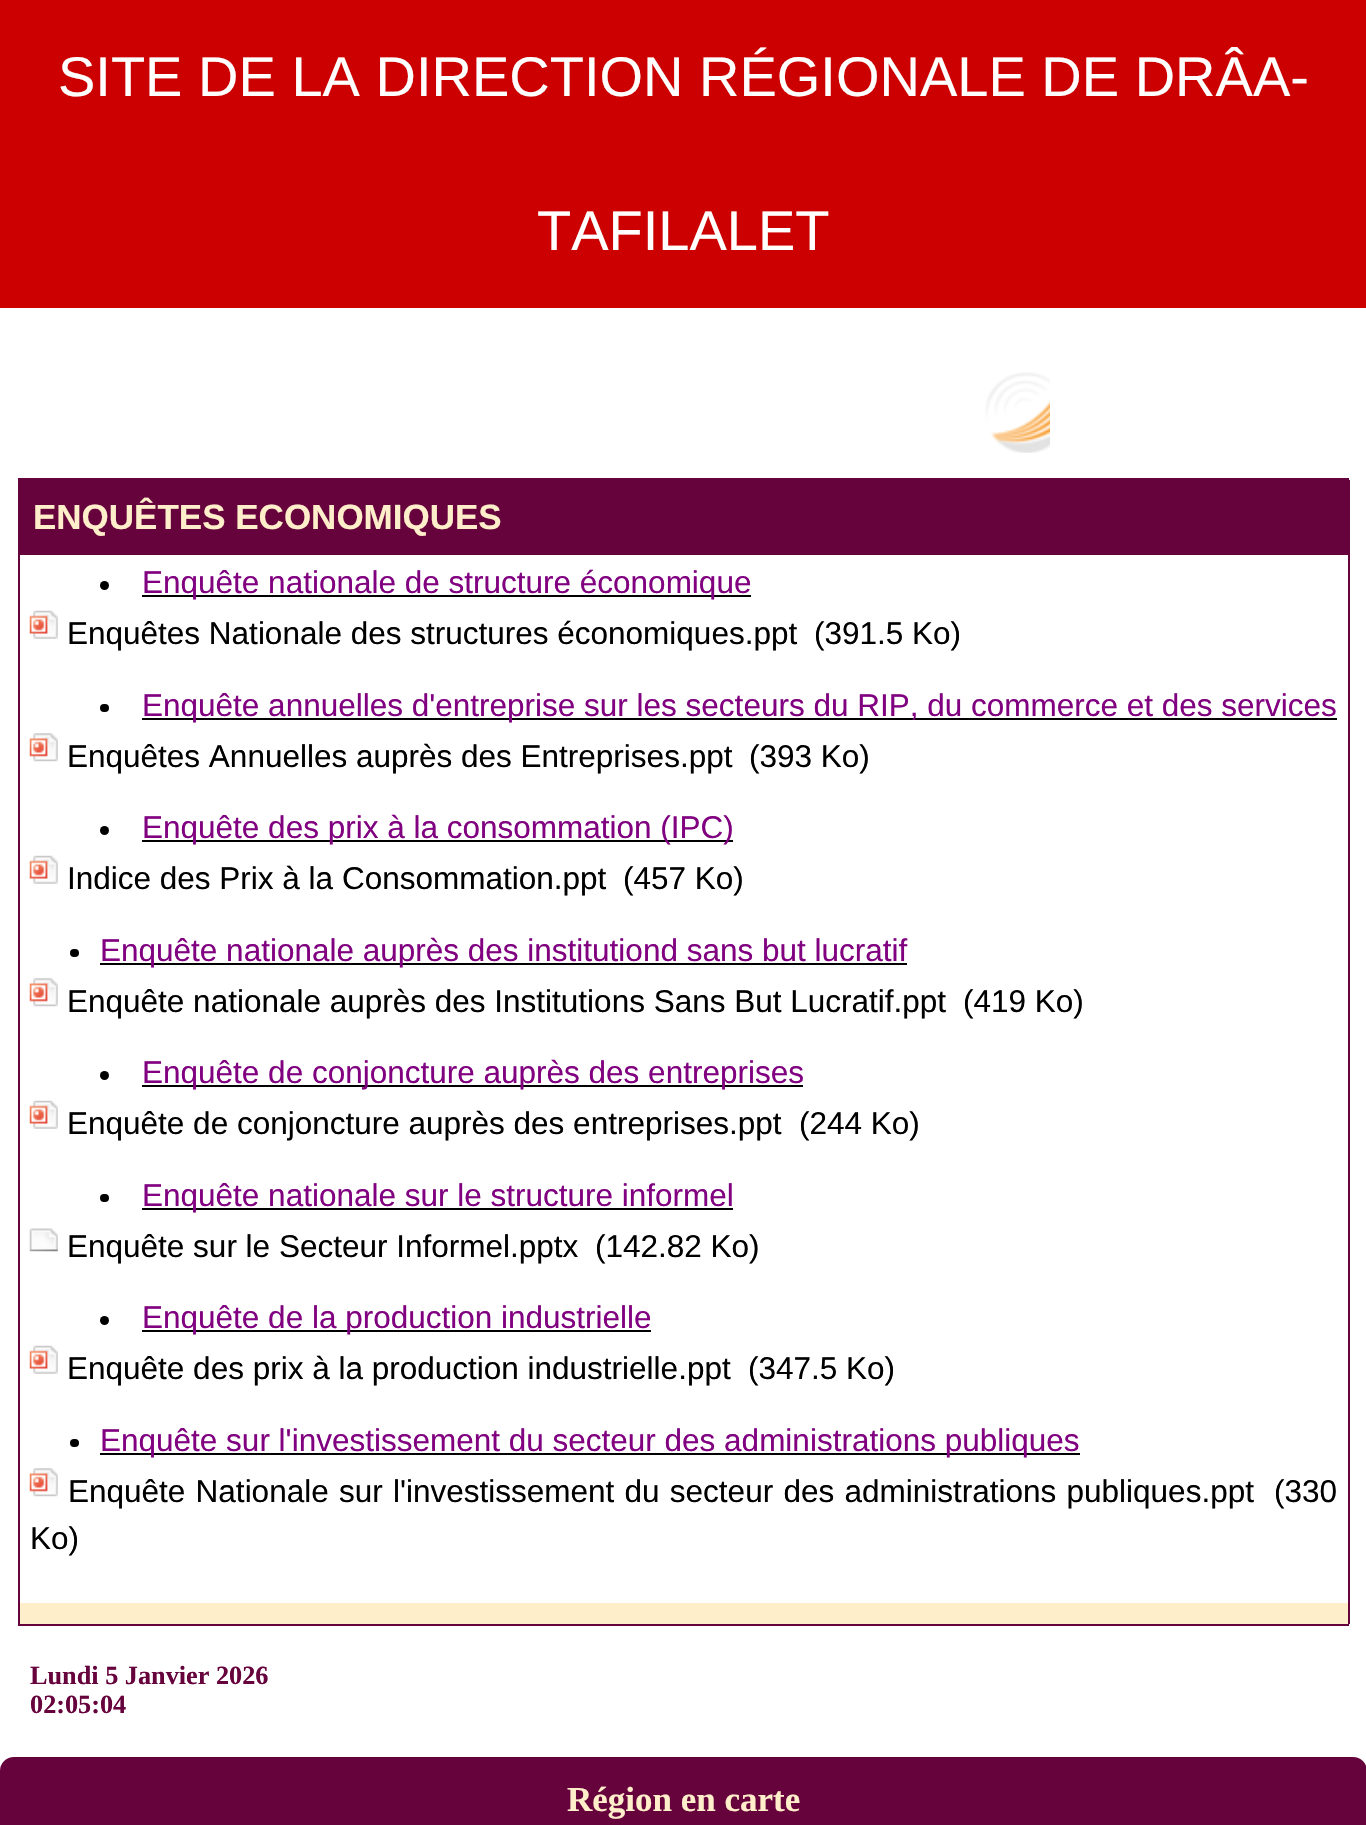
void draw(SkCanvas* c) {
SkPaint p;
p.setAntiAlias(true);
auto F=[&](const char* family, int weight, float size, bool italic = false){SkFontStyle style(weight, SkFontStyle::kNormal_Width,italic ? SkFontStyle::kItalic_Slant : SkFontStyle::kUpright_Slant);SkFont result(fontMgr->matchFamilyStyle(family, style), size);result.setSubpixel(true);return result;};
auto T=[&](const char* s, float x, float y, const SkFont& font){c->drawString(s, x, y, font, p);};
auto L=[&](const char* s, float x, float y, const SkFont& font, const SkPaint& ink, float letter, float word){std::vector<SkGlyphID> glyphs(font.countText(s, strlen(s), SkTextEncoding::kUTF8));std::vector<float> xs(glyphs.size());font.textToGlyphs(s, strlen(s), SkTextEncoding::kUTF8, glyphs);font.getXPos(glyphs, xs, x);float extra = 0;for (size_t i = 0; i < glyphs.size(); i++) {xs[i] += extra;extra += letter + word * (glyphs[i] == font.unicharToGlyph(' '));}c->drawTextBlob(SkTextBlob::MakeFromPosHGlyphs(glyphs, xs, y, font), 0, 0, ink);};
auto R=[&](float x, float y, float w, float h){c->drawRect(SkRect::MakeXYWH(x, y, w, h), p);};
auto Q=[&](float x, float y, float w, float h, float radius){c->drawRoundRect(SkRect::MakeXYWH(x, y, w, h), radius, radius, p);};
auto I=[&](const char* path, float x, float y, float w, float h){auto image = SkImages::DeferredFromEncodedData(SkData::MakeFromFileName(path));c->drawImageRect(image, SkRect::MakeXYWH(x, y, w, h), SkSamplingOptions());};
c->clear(0xffffffff);
p.setColor(0xffcc0000);
R(0,0,1366,308);
auto f1 = F("Liberation Sans",400,56);
p.setColor(0xffffffff);
T("SITE DE LA DIRECTION RÉGIONALE DE DRÂA-",58,96,f1);
T("TAFILALET",537,250,f1);
I("1.png",985,372,65,81);
p.setColor(0xff66023c);
R(18,478,1331,2);
R(18,1624,1331,2);
R(18,480,1332,75);
auto f2 = F("Liberation Sans",700,35);
p.setColor(0xffffeeca);
T("ENQUÊTES ECONOMIQUES",33,529,f2);
p.setColor(0xff66023c);
R(1348,555,2,1069);
R(18,555,2,1069);
p.setColor(0xff000000);
c->drawCircle(104.5,585.5,4.5,p);
R(142,595,609,2);
auto f3 = F("Liberation Sans",400,31.5);
p.setColor(0xff800080);
T("Enquête nationale de structure économique",142,593,f3);
I("2.png",29,610,29,29);
p.setColor(0xff000000);
T("Enquêtes Nationale des structures économiques.ppt",67,644,f3);
T("(391.5 Ko)",814,644,f3);
Q(100,704,9,8,4);
R(142,718,1195,2);
p.setColor(0xff800080);
T("Enquête annuelles d'entreprise sur les secteurs du RIP, du commerce et des services",142,716,f3);
I("3.png",29,733,29,29);
p.setColor(0xff000000);
T("Enquêtes Annuelles auprès des Entreprises.ppt",67,767,f3);
T("(393 Ko)",749,767,f3);
c->drawCircle(104.5,830.5,4.5,p);
R(142,840,591,2);
p.setColor(0xff800080);
T("Enquête des prix à la consommation (IPC)",142,838,f3);
I("2.png",29,855,29,29);
p.setColor(0xff000000);
T("Indice des Prix à la Consommation.ppt",67,889,f3);
T("(457 Ko)",623,889,f3);
Q(70,949,9,8,4);
R(100,963,807,2);
p.setColor(0xff800080);
T("Enquête nationale auprès des institutiond sans but lucratif",100,961,f3);
I("3.png",29,978,29,29);
p.setColor(0xff000000);
T("Enquête nationale auprès des Institutions Sans But Lucratif.ppt",67,1012,f3);
T("(419 Ko)",963,1012,f3);
c->drawCircle(104.5,1075.5,4.5,p);
R(142,1085,661,2);
p.setColor(0xff800080);
T("Enquête de conjoncture auprès des entreprises",142,1083,f3);
I("2.png",29,1100,29,29);
p.setColor(0xff000000);
T("Enquête de conjoncture auprès des entreprises.ppt",67,1134,f3);
T("(244 Ko)",799,1134,f3);
Q(100,1194,9,8,4);
R(142,1208,591,2);
p.setColor(0xff800080);
T("Enquête nationale sur le structure informel",142,1206,f3);
I("4.png",29,1228,29,24);
p.setColor(0xff000000);
T("Enquête sur le Secteur Informel.pptx",67,1257,f3);
T("(142.82 Ko)",595,1257,f3);
c->drawCircle(104.5,1320.5,4.5,p);
R(142,1330,509,2);
p.setColor(0xff800080);
T("Enquête de la production industrielle",142,1328,f3);
I("2.png",29,1345,29,29);
p.setColor(0xff000000);
T("Enquête des prix à la production industrielle.ppt",67,1379,f3);
T("(347.5 Ko)",748,1379,f3);
Q(70,1439,9,8,4);
R(100,1453,980,2);
p.setColor(0xff800080);
T("Enquête sur l'investissement du secteur des administrations publiques",100,1451,f3);
I("3.png",29,1468,29,29);
p.setColor(0xff000000);
L("Enquête Nationale sur l'investissement du secteur des administrations publiques.ppt",68,1502,f3,p,0,1.5);
T("(330",1274,1502,f3);
T("Ko)",30,1549,f3);
p.setColor(0xffffeeca);
R(20,1603,1328,21);
auto f4 = F("Liberation Serif",700,26.25);
p.setColor(0xff66023c);
T("Lundi 5 Janvier 2026",30,1684,f4);
T("02:05:04",30,1713,f4);
c->drawRoundRect(SkRect::MakeXYWH(2.5,1759.5,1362,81),11.5,11.5,p);
p.setStroke(true);
p.setStrokeWidth(5);
c->drawRoundRect(SkRect::MakeXYWH(2.5,1759.5,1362,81),11.5,11.5,p);
auto f5 = F("Liberation Serif",700,35);
p.setStroke(false);
p.setColor(0xffffeeca);
T("Région en carte",567,1811,f5);
}
